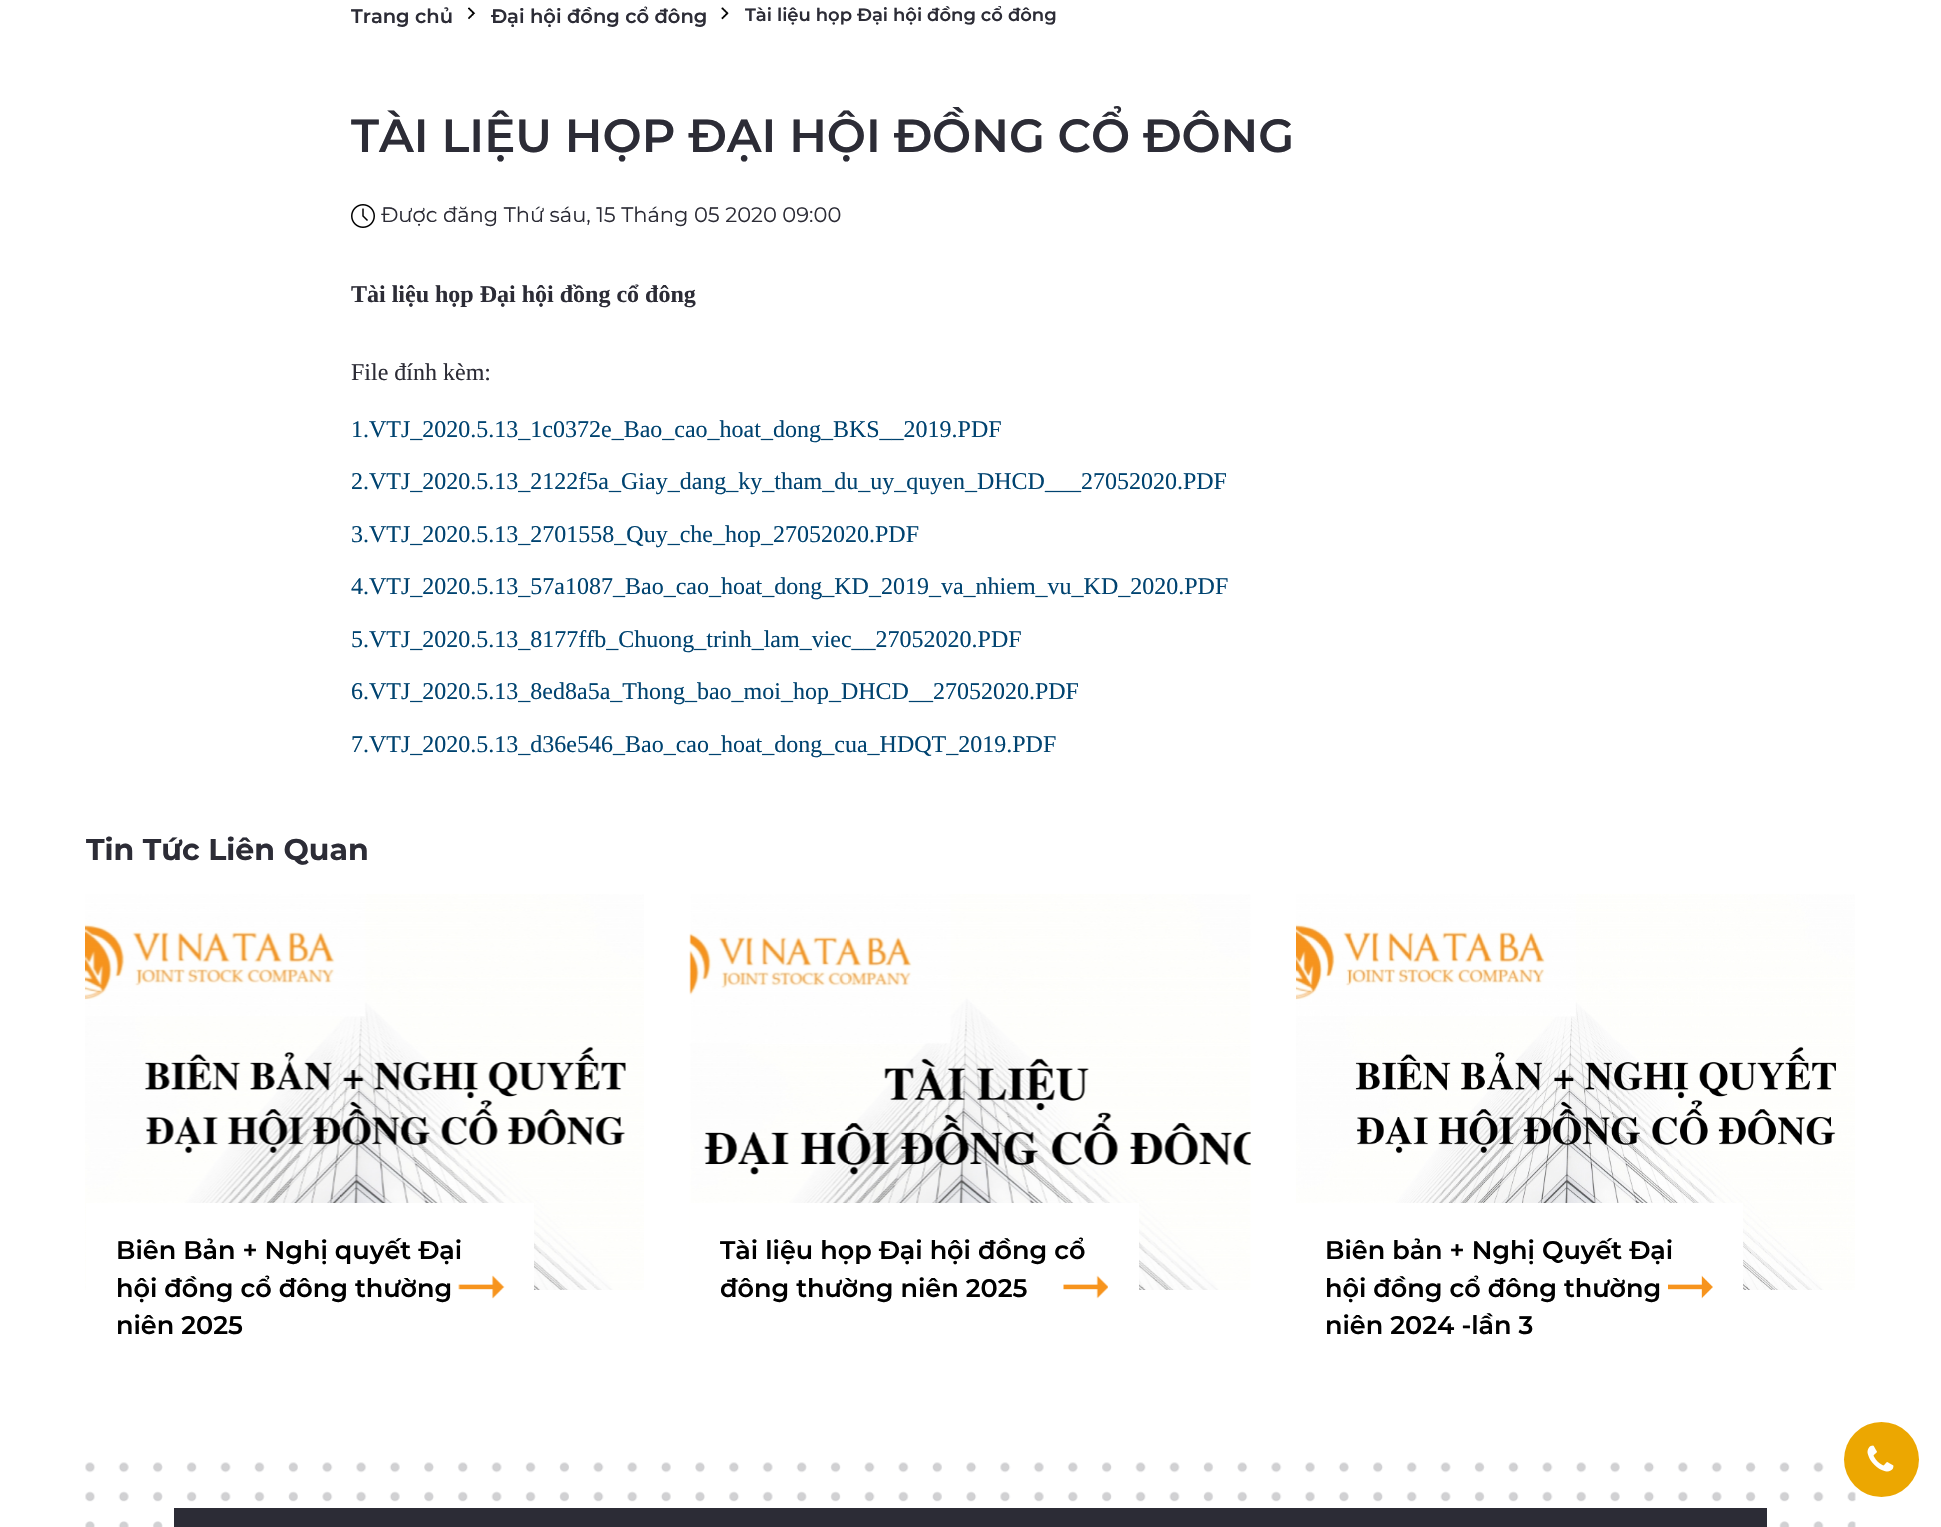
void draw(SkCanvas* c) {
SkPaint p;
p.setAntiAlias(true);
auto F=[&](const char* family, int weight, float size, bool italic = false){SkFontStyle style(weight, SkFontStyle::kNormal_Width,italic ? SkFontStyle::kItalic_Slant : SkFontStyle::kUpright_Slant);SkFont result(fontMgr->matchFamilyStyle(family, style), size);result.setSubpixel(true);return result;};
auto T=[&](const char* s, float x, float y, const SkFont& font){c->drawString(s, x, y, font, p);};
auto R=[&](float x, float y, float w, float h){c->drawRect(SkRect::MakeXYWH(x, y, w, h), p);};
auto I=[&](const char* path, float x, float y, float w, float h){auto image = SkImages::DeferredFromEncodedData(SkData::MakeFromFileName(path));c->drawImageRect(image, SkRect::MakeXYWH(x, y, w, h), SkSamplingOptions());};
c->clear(0xffffffff);
I("1.png",468,7,8,13);
auto f1 = F("Montserrat",600,19.5);
p.setColor(0xff2c2c36);
T("Trang chủ",351,23,f1);
I("2.png",721,7,8,13);
T("Đại hội đồng cổ đông",491,23,f1);
auto f2 = F("Montserrat",600,18);
T("Tài liệu họp Đại hội đồng cổ đông",745,21,f2);
auto f3 = F("Montserrat",600,46.5);
T("TÀI LIỆU HỌP ĐẠI HỘI ĐỒNG CỔ ĐÔNG",351,152,f3);
I("3.png",351,204,24,24);
auto f4 = F("Montserrat",400,21);
T("Được đăng Thứ sáu, 15 Tháng 05 2020 09:00",381,222,f4);
auto f5 = F("Liberation Serif",700,24);
T("Tài liệu họp Đại hội đồng cổ đông",351,302,f5);
auto f6 = F("Liberation Serif",400,24);
T("File đính kèm:",351,380,f6);
p.setColor(0xff004370);
T("1.VTJ_2020.5.13_1c0372e_Bao_cao_hoat_dong_BKS__2019.PDF",351,437,f6);
T("2.VTJ_2020.5.13_2122f5a_Giay_dang_ky_tham_du_uy_quyen_DHCD___27052020.PDF",351,489,f6);
T("3.VTJ_2020.5.13_2701558_Quy_che_hop_27052020.PDF",351,542,f6);
T("4.VTJ_2020.5.13_57a1087_Bao_cao_hoat_dong_KD_2019_va_nhiem_vu_KD_2020.PDF",351,594,f6);
T("5.VTJ_2020.5.13_8177ffb_Chuong_trinh_lam_viec__27052020.PDF",351,647,f6);
T("6.VTJ_2020.5.13_8ed8a5a_Thong_bao_moi_hop_DHCD__27052020.PDF",351,699,f6);
T("7.VTJ_2020.5.13_d36e546_Bao_cao_hoat_dong_cua_HDQT_2019.PDF",351,752,f6);
auto f7 = F("Montserrat",700,30);
p.setColor(0xff2c2c36);
T("Tin Tức Liên Quan",86,860,f7);
I("4.png",85,894,559,396);
p.setColor(0xffffffff);
R(86,1203,448,87);
auto f8 = F("Montserrat",600,25.5);
p.setColor(0xff000000);
T("Biên Bản + Nghị quyết Đại",116,1259,f8);
T("hội đồng cổ đông thường",116,1297,f8);
T("niên 2025",116,1334,f8);
I("5.png",458,1275,47,24);
I("6.png",689,894,562,396);
p.setColor(0xffffffff);
R(690,1203,449,87);
p.setColor(0xff000000);
T("Tài liệu họp Đại hội đồng cổ",720,1259,f8);
T("đông thường niên 2025",720,1297,f8);
I("7.png",1063,1275,45,24);
I("8.png",1296,894,559,396);
p.setColor(0xffffffff);
R(1296,1203,447,87);
p.setColor(0xff000000);
T("Biên bản + Nghị Quyết Đại",1325,1259,f8);
T("hội đồng cổ đông thường",1325,1297,f8);
T("niên 2024 -lần 3",1325,1334,f8);
I("9.png",1668,1275,45,24);
I("10.png",85,1462,1771,65);
p.setColor(0xff2c2c36);
R(174,1508,1593,19);
p.setColor(0xffeca701);
c->drawCircle(1881.5,1459.5,37.5,p);
I("11.png",1867,1445,27,27);
}
